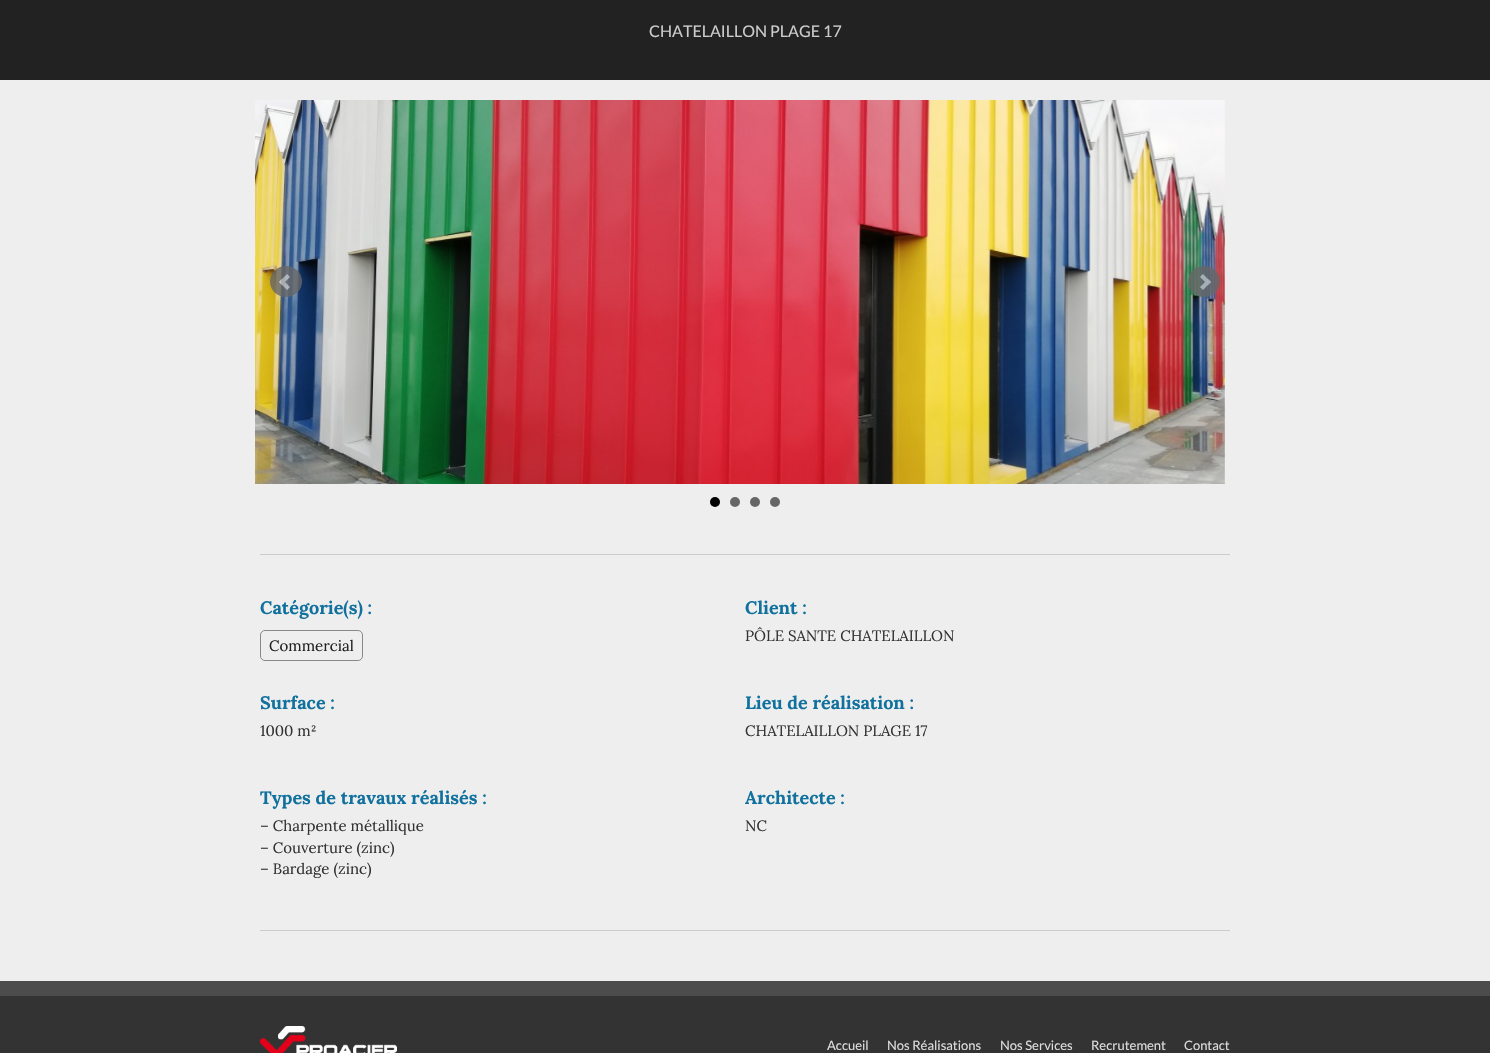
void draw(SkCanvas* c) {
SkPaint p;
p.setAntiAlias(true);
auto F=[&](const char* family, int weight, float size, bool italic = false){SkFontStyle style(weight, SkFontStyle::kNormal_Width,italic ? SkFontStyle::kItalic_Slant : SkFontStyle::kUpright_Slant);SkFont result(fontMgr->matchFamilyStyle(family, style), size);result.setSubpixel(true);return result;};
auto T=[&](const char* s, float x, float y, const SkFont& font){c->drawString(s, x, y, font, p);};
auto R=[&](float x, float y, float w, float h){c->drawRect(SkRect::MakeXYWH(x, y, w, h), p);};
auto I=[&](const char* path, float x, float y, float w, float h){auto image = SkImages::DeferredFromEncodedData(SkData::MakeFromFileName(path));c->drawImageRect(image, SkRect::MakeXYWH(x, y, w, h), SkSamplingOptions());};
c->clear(0xffeeeeee);
p.setColor(0xff222222);
R(0,0,1490,80);
auto f1 = F("Lato",400,16);
p.setColor(0xffcccccc);
T("CHATELAILLON PLAGE 17",649,37,f1);
I("1.png",255,100,970,384);
I("2.png",270,266,32,31);
I("3.png",1188,266,32,31);
p.setColor(0xff000000);
c->drawCircle(715,502,5,p);
p.setColor(0xff666666);
c->drawCircle(735,502,5,p);
c->drawCircle(755,502,5,p);
c->drawCircle(775,502,5,p);
p.setColor(0xffcccccc);
R(260,554,970,1);
R(260,930,970,1);
auto f2 = F("Lora",700,18);
p.setColor(0xff11719e);
T("Catégorie(s) :",260,614,f2);
p.setStroke(true);
p.setStrokeWidth(1);
p.setColor(0xff888888);
c->drawRoundRect(SkRect::MakeXYWH(260.5,630.5,102,30),4.5,4.5,p);
auto f3 = F("Lora",400,15);
p.setStroke(false);
p.setColor(0xff222222);
T("Commercial",269,651,f3);
p.setColor(0xff11719e);
T("Client :",745,614,f2);
p.setColor(0xff333333);
T("PÔLE SANTE CHATELAILLON",745,641,f3);
p.setColor(0xff11719e);
T("Surface :",260,709,f2);
p.setColor(0xff333333);
T("1000 m²",260,736,f3);
p.setColor(0xff11719e);
T("Lieu de réalisation :",745,709,f2);
p.setColor(0xff333333);
T("CHATELAILLON PLAGE 17",745,736,f3);
p.setColor(0xff11719e);
T("Types de travaux réalisés :",260,804,f2);
p.setColor(0xff333333);
T("– Charpente métallique",260,831,f3);
T("– Couverture (zinc)",260,853,f3);
T("– Bardage (zinc)",260,874,f3);
p.setColor(0xff11719e);
T("Architecte :",745,804,f2);
p.setColor(0xff333333);
T("NC",745,831,f3);
R(0,996,1490,57);
p.setColor(0xff4c4c4c);
R(0,981,1490,15);
I("4.png",260,1026,137,27);
auto f4 = F("Lato",400,13);
p.setColor(0xffdddddd);
T("Accueil",827,1050,f4);
T("Nos Réalisations",887,1050,f4);
T("Nos Services",1000,1050,f4);
T("Recrutement",1091,1050,f4);
T("Contact",1184,1050,f4);
}
